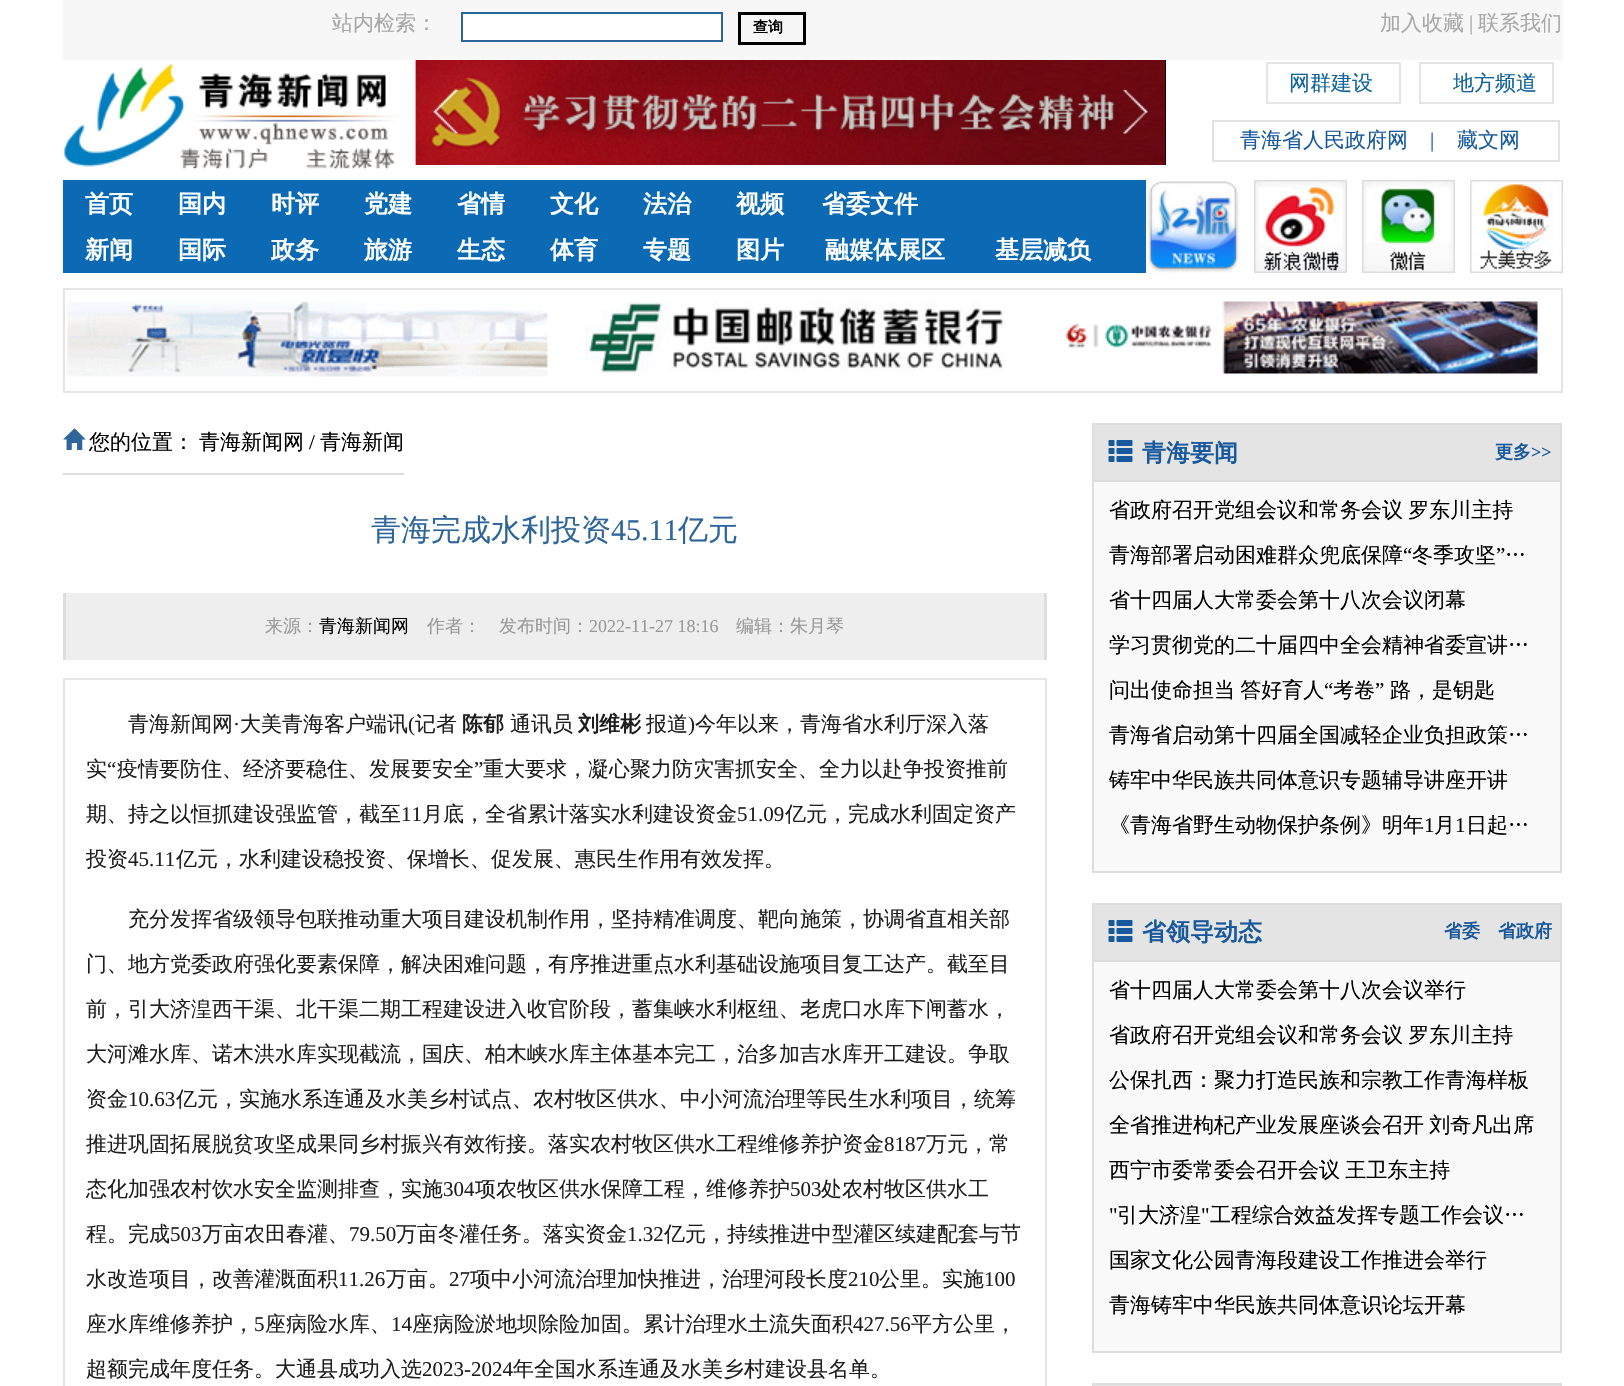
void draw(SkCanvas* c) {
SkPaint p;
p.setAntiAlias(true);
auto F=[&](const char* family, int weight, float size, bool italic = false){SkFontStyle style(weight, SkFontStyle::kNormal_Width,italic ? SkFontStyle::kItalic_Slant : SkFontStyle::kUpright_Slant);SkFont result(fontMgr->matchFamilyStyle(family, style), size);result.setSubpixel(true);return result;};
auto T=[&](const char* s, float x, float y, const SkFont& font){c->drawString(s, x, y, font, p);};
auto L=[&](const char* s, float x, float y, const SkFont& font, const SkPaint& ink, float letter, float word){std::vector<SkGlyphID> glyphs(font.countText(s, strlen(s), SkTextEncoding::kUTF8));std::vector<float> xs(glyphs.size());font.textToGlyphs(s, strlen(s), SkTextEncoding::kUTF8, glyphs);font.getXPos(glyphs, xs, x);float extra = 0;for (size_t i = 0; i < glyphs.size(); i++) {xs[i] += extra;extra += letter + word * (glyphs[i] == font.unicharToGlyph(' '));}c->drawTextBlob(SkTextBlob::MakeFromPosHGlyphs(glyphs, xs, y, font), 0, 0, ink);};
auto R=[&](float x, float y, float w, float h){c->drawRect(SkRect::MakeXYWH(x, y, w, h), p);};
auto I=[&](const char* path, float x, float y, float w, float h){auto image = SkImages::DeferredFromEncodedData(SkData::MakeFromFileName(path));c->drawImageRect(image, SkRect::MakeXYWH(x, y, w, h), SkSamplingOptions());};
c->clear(0xffffffff);
p.setColor(0xfff7f7f7);
R(63,0,1500,60);
auto f1 = F("WenQuanYi Zen Hei",500,21);
p.setColor(0xffa8a8a8);
T("站内检索：",332,30,f1);
p.setColor(0xffffffff);
c->drawRect(SkRect::MakeXYWH(462,13,260,28),p);
p.setStroke(true);
p.setStrokeWidth(2);
p.setColor(0xff2f6699);
c->drawRect(SkRect::MakeXYWH(462,13,260,28),p);
p.setStrokeWidth(3);
p.setColor(0xff000000);
c->drawRect(SkRect::MakeXYWH(739.5,13.5,65,30),p);
auto f2 = F("WenQuanYi Zen Hei",700,15);
p.setStroke(false);
T("查询",753,32,f2);
p.setColor(0xffa8a8a8);
T("加入收藏",1380,30,f1);
auto f3 = F("Liberation Serif",400,21);
T("|",1469,30,f3);
T("联系我们",1478,30,f1);
I("1.png",63,63,333,107);
p.setColor(0xff000000);
R(416,60,750,105);
I("2.png",415,60,751,105);
I("3.png",433,89,25,45);
I("4.png",1123,89,25,45);
p.setStroke(true);
p.setStrokeWidth(2);
p.setColor(0xffe5e5e5);
c->drawRect(SkRect::MakeXYWH(1267,63,133,40),p);
p.setStroke(false);
p.setColor(0xff0f649b);
T("网群建设",1289,90,f1);
p.setStroke(true);
p.setColor(0xffe5e5e5);
c->drawRect(SkRect::MakeXYWH(1420,63,133,40),p);
p.setStroke(false);
p.setColor(0xff0f649b);
T("地方频道",1453,90,f1);
p.setStroke(true);
p.setColor(0xffe2e2e2);
c->drawRect(SkRect::MakeXYWH(1213,121,346,40),p);
p.setStroke(false);
p.setColor(0xff18599d);
T("青海省人民政府网",1240,147,f1);
T("|",1430,147,f3);
T("藏文网",1457,147,f1);
p.setColor(0xff0c6ab4);
R(63,180,1083,93);
auto f4 = F("WenQuanYi Zen Hei",700,24);
p.setColor(0xffffffff);
T("首页",85,212,f4);
T("国内",178,212,f4);
T("时评",271,212,f4);
T("党建",364,212,f4);
T("省情",457,212,f4);
T("文化",550,212,f4);
T("法治",643,212,f4);
T("视频",736,212,f4);
T("省委文件",822,212,f4);
T("新闻",85,258,f4);
T("国际",178,258,f4);
T("政务",271,258,f4);
T("旅游",364,258,f4);
T("生态",457,258,f4);
T("体育",550,258,f4);
T("专题",643,258,f4);
T("图片",736,258,f4);
T("融媒体展区",825,258,f4);
T("基层减负",995,258,f4);
I("5.png",1146,181,95,92);
I("6.png",1254,180,93,93);
I("7.png",1362,180,93,93);
I("8.png",1470,180,93,93);
p.setStroke(true);
p.setColor(0xffe5e5e5);
c->drawRect(SkRect::MakeXYWH(64,289,1498,103),p);
I("9.png",67,301,481,76);
I("10.png",585,301,420,72);
I("11.png",1065,301,473,73);
p.setStroke(false);
p.setColor(0xffdddddd);
R(63,473,341,2);
I("12.png",63,428,23,22);
p.setColor(0xff000000);
T("您的位置：",89,449,f1);
T("青海新闻网",199,449,f1);
T("/",309,449,f3);
T("青海新闻",320,449,f1);
auto f5 = F("WenQuanYi Zen Hei",500,30);
p.setColor(0xff2f6699);
T("青海完成水利投资",371,540,f5);
auto f6 = F("Liberation Serif",400,30);
T("45.11",611,540,f6);
T("亿元",678,540,f5);
p.setColor(0xffeeeeee);
R(66,593,978,67);
p.setColor(0xffdddddd);
R(1044,593,3,67);
R(63,593,3,67);
auto f7 = F("WenQuanYi Zen Hei",500,18);
p.setColor(0xff999999);
T("来源：",265,632,f7);
p.setColor(0xff000000);
T("青海新闻网",319,632,f7);
p.setColor(0xff999999);
T("作者：",427,632,f7);
T("发布时间：",499,632,f7);
auto f8 = F("Liberation Serif",400,18);
T("2022-11-27 18:16",589,632,f8);
T("编辑：朱月琴",736,632,f7);
p.setStroke(true);
p.setColor(0xffe5e5e5);
c->drawRect(SkRect::MakeXYWH(64,679,982,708),p);
p.setStroke(false);
p.setColor(0xff1e1e1e);
T("青海新闻网",128,731,f1);
T("·",233,731,f3);
T("大美青海客户端讯",240,731,f1);
T("(",408,731,f3);
T("记者",415,731,f1);
auto f9 = F("WenQuanYi Zen Hei",700,21);
T("陈郁",462,731,f9);
T("通讯员",510,731,f1);
T("刘维彬",578,731,f9);
T("报道",646,731,f1);
T(")",688,731,f3);
T("今年以来，青海省水利厅深入落",695,731,f1);
T("实",86,776,f1);
T("“",107,776,f3);
T("疫情要防住、经济要稳住、发展要安全",117,776,f1);
T("”",474,776,f3);
T("重大要求，凝心聚力防灾害抓安全、全力以赴争投资推前",483,776,f1);
T("期、持之以恒抓建设强监管，截至",86,821,f1);
T("11",401,821,f3);
T("月底，全省累计落实水利建设资金",422,821,f1);
T("51.09",737,821,f3);
T("亿元，完成水利固定资产",785,821,f1);
T("投资",86,866,f1);
T("45.11",128,866,f3);
T("亿元，水利建设稳投资、保增长、促发展、惠民生作用有效发挥。",176,866,f1);
T("充分发挥省级领导包联推动重大项目建设机制作用，坚持精准调度、靶向施策，协调省直相关部",128,926,f1);
T("门、地方党委政府强化要素保障，解决困难问题，有序推进重点水利基础设施项目复工达产。截至目",86,971,f1);
T("前，引大济湟西干渠、北干渠二期工程建设进入收官阶段，蓄集峡水利枢纽、老虎口水库下闸蓄水，",86,1016,f1);
T("大河滩水库、诺木洪水库实现截流，国庆、柏木峡水库主体基本完工，治多加吉水库开工建设。争取",86,1061,f1);
T("资金",86,1106,f1);
T("10.63",128,1106,f3);
T("亿元，实施水系连通及水美乡村试点、农村牧区供水、中小河流治理等民生水利项目，统筹",176,1106,f1);
T("推进巩固拓展脱贫攻坚成果同乡村振兴有效衔接。落实农村牧区供水工程维修养护资金",86,1151,f1);
T("8187",884,1151,f3);
T("万元，常",926,1151,f1);
T("态化加强农村饮水安全监测排查，实施",86,1196,f1);
T("304",443,1196,f3);
T("项农牧区供水保障工程，维修养护",475,1196,f1);
T("503",790,1196,f3);
T("处农村牧区供水工",821,1196,f1);
T("程。完成",86,1241,f1);
T("503",170,1241,f3);
T("万亩农田春灌、",202,1241,f1);
T("79.50",349,1241,f3);
T("万亩冬灌任务。落实资金",396,1241,f1);
T("1.32",627,1241,f3);
T("亿元，持续推进中型灌区续建配套与节",664,1241,f1);
T("水改造项目，改善灌溉面积",86,1286,f1);
T("11.26",338,1286,f3);
T("万亩。",386,1286,f1);
T("27",449,1286,f3);
T("项中小河流治理加快推进，治理河段长度",470,1286,f1);
T("210",848,1286,f3);
T("公里。实施",879,1286,f1);
T("100",984,1286,f3);
T("座水库维修养护，",86,1331,f1);
T("5",254,1331,f3);
T("座病险水库、",265,1331,f1);
T("14",391,1331,f3);
T("座病险淤地坝除险加固。累计治理水土流失面积",412,1331,f1);
T("427.56",853,1331,f3);
T("平方公里，",911,1331,f1);
T("超额完成年度任务。大通县成功入选",86,1376,f1);
T("2023-2024",422,1376,f3);
T("年全国水系连通及水美乡村建设县名单。",513,1376,f1);
p.setColor(0xfff9f9f9);
R(1094,482,466,389);
p.setStroke(true);
p.setColor(0xffdddddd);
c->drawRect(SkRect::MakeXYWH(1093,424,468,448),p);
p.setStroke(false);
p.setColor(0xffe4e4e4);
R(1094,425,466,55);
p.setColor(0xffdddddd);
R(1094,480,466,2);
I("13.png",1108,440,25,22);
p.setColor(0xff18599d);
T("青海要闻",1142,461,f4);
auto f10 = F("WenQuanYi Zen Hei",700,18);
T("更多",1495,458,f10);
auto f11 = F("Liberation Serif",700,18);
T(">>",1531,458,f11);
p.setColor(0xff000000);
L("省政府召开党组会议和常务会议 罗东川主持",1109,517,f1,p,0,-1);
T("青海部署启动困难群众兜底保障",1109,562,f1);
T("“",1403,562,f3);
T("冬季攻坚",1412,562,f1);
T("”",1496,562,f3);
T("…",1505,562,f1);
T("省十四届人大常委会第十八次会议闭幕",1109,607,f1);
T("学习贯彻党的二十届四中全会精神省委宣讲…",1109,652,f1);
L("问出使命担当 答好育人",1109,697,f1,p,0,-1);
T("“",1324,697,f3);
T("考卷",1333,697,f1);
T("”",1375,697,f3);
T("路，是钥匙",1390,697,f1);
T("青海省启动第十四届全国减轻企业负担政策…",1109,742,f1);
T("铸牢中华民族共同体意识专题辅导讲座开讲",1109,787,f1);
T("《青海省野生动物保护条例》明年",1109,832,f1);
T("1",1424,832,f3);
T("月",1434,832,f1);
T("1",1455,832,f3);
T("日起…",1466,832,f1);
p.setColor(0xfff9f9f9);
R(1094,962,466,389);
p.setStroke(true);
p.setColor(0xffdddddd);
c->drawRect(SkRect::MakeXYWH(1093,904,468,448),p);
p.setStroke(false);
p.setColor(0xffe4e4e4);
R(1094,905,466,55);
p.setColor(0xffdddddd);
R(1094,960,466,2);
I("13.png",1108,920,25,22);
p.setColor(0xff18599d);
T("省领导动态",1142,940,f4);
T("省委",1444,937,f10);
T("省政府",1498,937,f10);
p.setColor(0xff000000);
T("省十四届人大常委会第十八次会议举行",1109,997,f1);
L("省政府召开党组会议和常务会议 罗东川主持",1109,1042,f1,p,0,-1);
T("公保扎西：聚力打造民族和宗教工作青海样板",1109,1087,f1);
L("全省推进枸杞产业发展座谈会召开 刘奇凡出席",1109,1132,f1,p,0,-1);
L("西宁市委常委会召开会议 王卫东主持",1109,1177,f1,p,0,-1);
T("\"",1109,1222,f3);
T("引大济湟",1117,1222,f1);
T("\"",1201,1222,f3);
T("工程综合效益发挥专题工作会议…",1210,1222,f1);
T("国家文化公园青海段建设工作推进会举行",1109,1267,f1);
T("青海铸牢中华民族共同体意识论坛开幕",1109,1312,f1);
p.setStroke(true);
p.setColor(0xffdddddd);
c->drawRect(SkRect::MakeXYWH(1093,1384,468,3),p);
p.setStroke(false);
p.setColor(0xffe4e4e4);
R(1094,1385,466,1);
}
